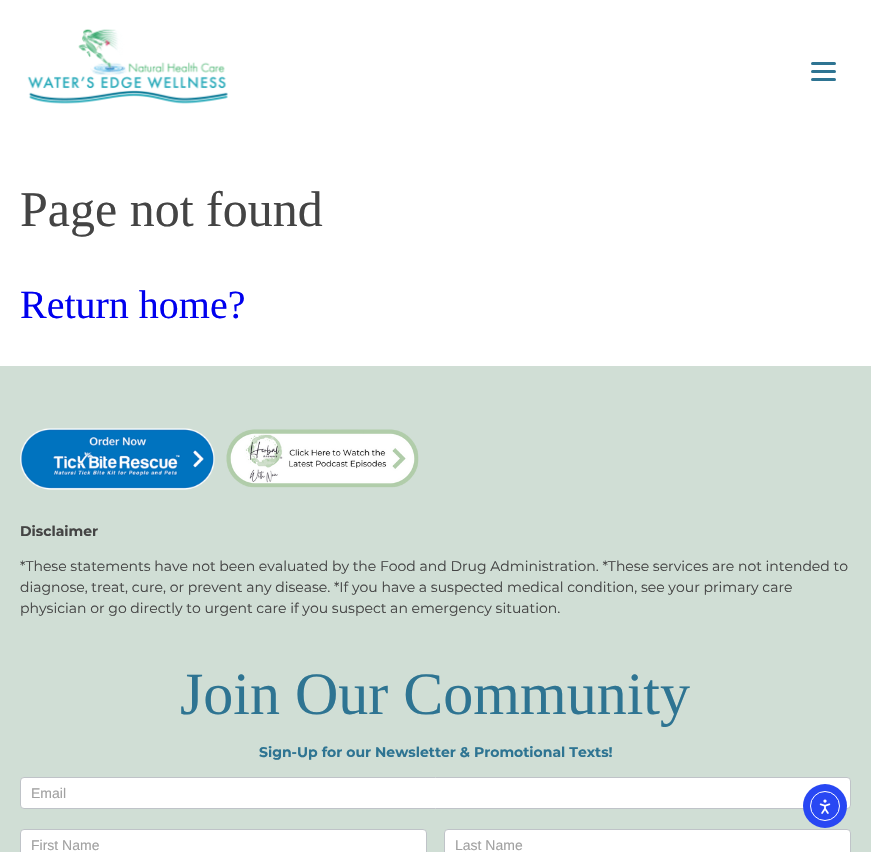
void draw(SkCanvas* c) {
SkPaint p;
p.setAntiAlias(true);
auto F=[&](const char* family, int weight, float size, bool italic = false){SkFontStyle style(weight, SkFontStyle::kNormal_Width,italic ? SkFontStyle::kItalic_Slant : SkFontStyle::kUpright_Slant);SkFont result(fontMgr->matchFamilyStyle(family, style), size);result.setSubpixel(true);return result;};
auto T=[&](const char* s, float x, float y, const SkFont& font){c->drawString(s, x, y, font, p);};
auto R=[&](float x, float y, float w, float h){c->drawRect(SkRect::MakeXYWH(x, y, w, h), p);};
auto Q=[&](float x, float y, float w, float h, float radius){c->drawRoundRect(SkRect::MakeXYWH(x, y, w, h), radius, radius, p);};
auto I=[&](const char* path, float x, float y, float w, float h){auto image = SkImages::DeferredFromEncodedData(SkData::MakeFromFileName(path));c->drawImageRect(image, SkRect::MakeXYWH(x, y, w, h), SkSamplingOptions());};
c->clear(0xffffffff);
I("1.png",27,29,201,75);
p.setColor(0xff2e7492);
Q(811,78,25,3,1.5);
Q(811,62,25,3,1.5);
Q(811,70,25,3,1.5);
auto f1 = F("Liberation Serif",400,50);
p.setColor(0xff444444);
T("Page not found",20,226,f1);
auto f2 = F("Liberation Serif",400,40);
p.setColor(0xff0000ee);
T("Return home?",20,318,f2);
p.setColor(0xffd0ded5);
R(0,366,871,486);
I("2.png",20,428,195,62);
I("3.png",226,429,193,59);
auto f3 = F("Montserrat",700,14);
p.setColor(0xff444444);
T("Disclaimer",20,536,f3);
auto f4 = F("Montserrat",400,14);
T("*These statements have not been evaluated by the Food and Drug Administration. *These services are not intended to",20,571,f4);
T("diagnose, treat, cure, or prevent any disease. *If you have a suspected medical condition, see your primary care",20,592,f4);
T("physician or go directly to urgent care if you suspect an emergency situation.",20,613,f4);
auto f5 = F("Liberation Serif",400,60);
p.setColor(0xff2e7492);
T("Join Our Community",180,714,f5);
T("Sign-Up for our Newsletter & Promotional Texts!",259,757,f3);
p.setColor(0xffffffff);
c->drawRoundRect(SkRect::MakeXYWH(20.5,777.5,830,31),3.5,3.5,p);
p.setStroke(true);
p.setStrokeWidth(1);
p.setColor(0xffbfc3c8);
c->drawRoundRect(SkRect::MakeXYWH(20.5,777.5,830,31),3.5,3.5,p);
auto f6 = F("Liberation Sans",400,14);
p.setStroke(false);
p.setColor(0xffa1a1a1);
T("Email",31,798,f6);
p.setColor(0xffffffff);
c->drawRoundRect(SkRect::MakeXYWH(20.5,829.5,406,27),3.5,3.5,p);
p.setStroke(true);
p.setColor(0xffbfc3c8);
c->drawRoundRect(SkRect::MakeXYWH(20.5,829.5,406,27),3.5,3.5,p);
p.setStroke(false);
p.setColor(0xffa1a1a1);
T("First Name",31,850,f6);
p.setColor(0xffffffff);
c->drawRoundRect(SkRect::MakeXYWH(444.5,829.5,406,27),3.5,3.5,p);
p.setStroke(true);
p.setColor(0xffbfc3c8);
c->drawRoundRect(SkRect::MakeXYWH(444.5,829.5,406,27),3.5,3.5,p);
p.setStroke(false);
p.setColor(0xffa1a1a1);
T("Last Name",455,850,f6);
p.setColor(0xff2847f3);
c->drawCircle(825,806,22,p);
p.setStroke(true);
p.setColor(0xffffffff);
c->drawCircle(825,806,14.5,p);
I("4.png",819,799,12,15);
}
